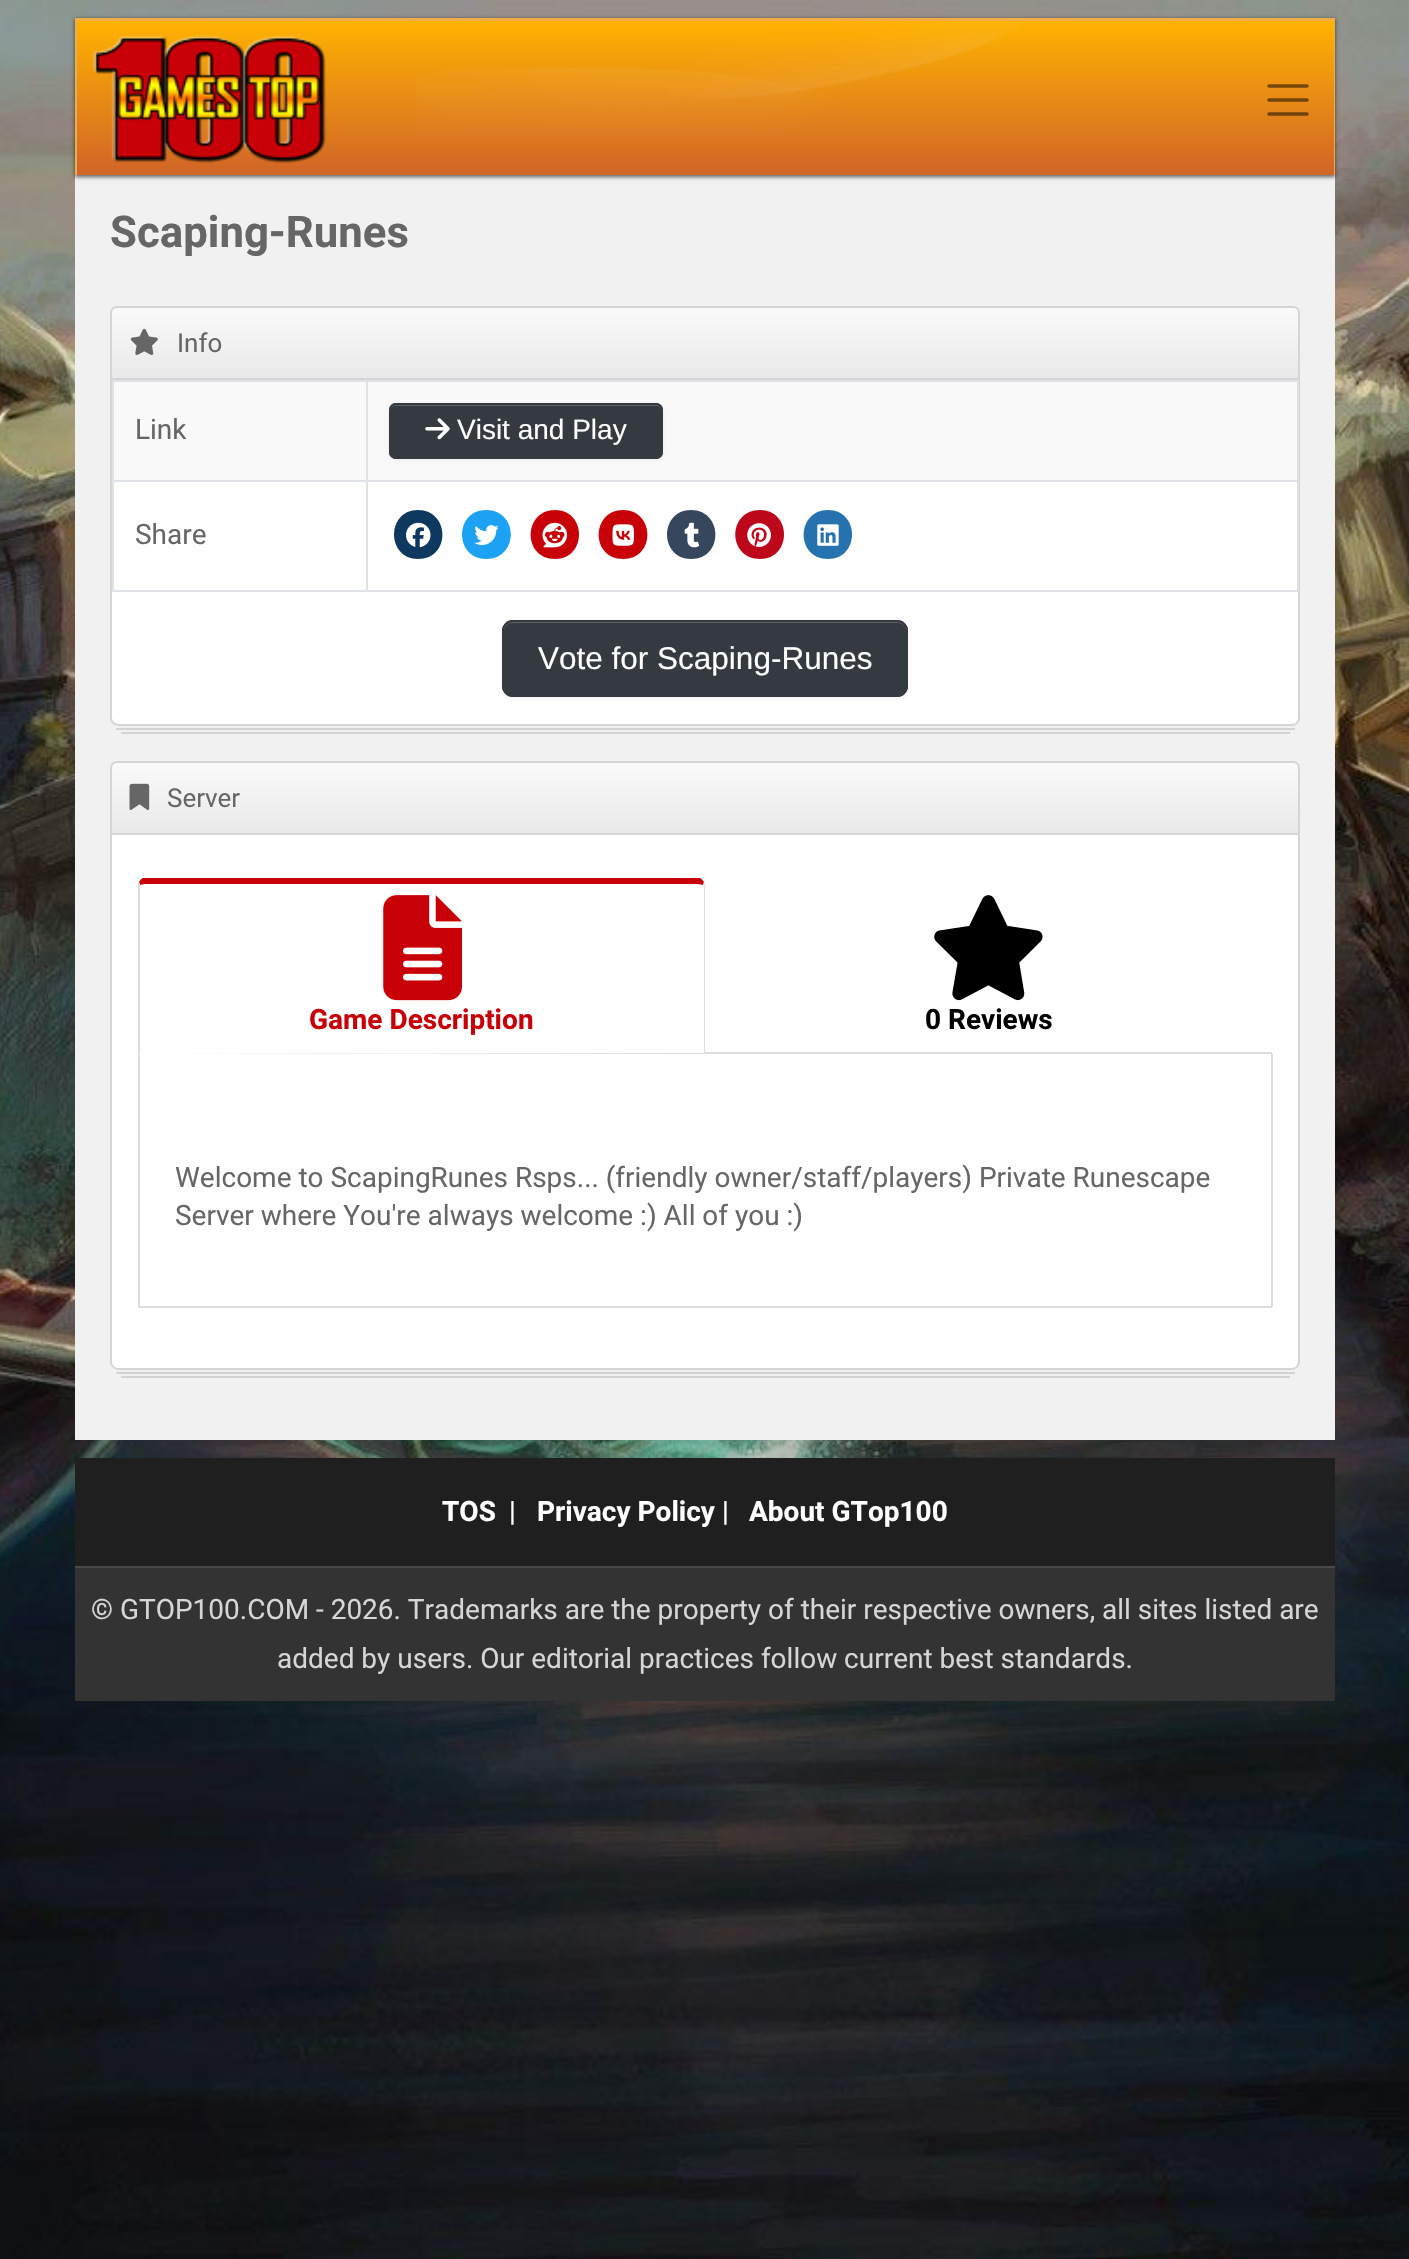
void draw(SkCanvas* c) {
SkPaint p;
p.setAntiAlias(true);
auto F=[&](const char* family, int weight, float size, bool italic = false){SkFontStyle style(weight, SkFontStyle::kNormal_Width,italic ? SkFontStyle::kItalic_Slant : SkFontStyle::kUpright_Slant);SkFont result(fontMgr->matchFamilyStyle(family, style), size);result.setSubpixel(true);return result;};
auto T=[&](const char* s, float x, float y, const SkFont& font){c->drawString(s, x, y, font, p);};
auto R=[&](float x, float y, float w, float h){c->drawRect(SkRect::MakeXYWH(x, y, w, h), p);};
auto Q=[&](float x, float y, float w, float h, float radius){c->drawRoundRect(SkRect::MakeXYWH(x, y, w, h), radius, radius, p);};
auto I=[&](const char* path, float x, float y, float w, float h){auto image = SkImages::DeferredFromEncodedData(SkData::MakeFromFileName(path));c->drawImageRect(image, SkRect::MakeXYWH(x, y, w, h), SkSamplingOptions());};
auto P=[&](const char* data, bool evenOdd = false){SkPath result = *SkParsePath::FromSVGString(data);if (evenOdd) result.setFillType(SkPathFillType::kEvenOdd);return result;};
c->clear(0xffffffff);
I("1.png",0,0,1409,2259);
{
const SkColor colors[] = {0xffd16428,0xffffb400};
const float stops[] = {0,1};
const SkPoint ends[] = {{705,175}, {705,18}};
p.setShader(SkGradientShader::MakeLinear(ends, colors, stops, 2, SkTileMode::kClamp));
p.setAlpha(255);
}
R(77,21,1257,154);
p.setShader(nullptr);
p.setColor(0xfff1f1f1);
R(75,175,1260,1265);
c->save();
c->clipPath(P("M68 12h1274v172h-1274zm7 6h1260v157h-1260z",true),true);
p.setColor(0x99000000);
p.setMaskFilter(SkMaskFilter::MakeBlur(kNormal_SkBlurStyle, 2));
c->drawRect(SkRect::MakeXYWH(75,19,1260,158),p);
p.setMaskFilter(nullptr);
c->restore();
I("2.png",416,21,609,115);
c->save();
c->clipRect(SkRect::MakeXYWH(75,18,1260,157));
p.setColor(0xfff3ab46);
c->drawPath(P("M-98-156h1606v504h-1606zm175 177h1257v154h-1257z",true),p);
c->restore();
I("3.png",92,35,234,128);
p.setStroke(true);
p.setStrokeWidth(3.5);
p.setStrokeCap(SkPaint::kRound_Cap);
p.setColor(0x80000000);
c->drawPath(P("M1269 86h38m-38 14h38m-38 14h38"),p);
auto f1 = F("Roboto",700,43.75);
p.setStroke(false);
p.setColor(0xff666666);
T("Scaping-Runes",110,247,f1);
{
const SkColor colors[] = {0xfffafafa,0xffe9e9e9};
const float stops[] = {0,1};
const SkPoint ends[] = {{705,308}, {705,378}};
p.setShader(SkGradientShader::MakeLinear(ends, colors, stops, 2, SkTileMode::kClamp));
p.setAlpha(255);
}
c->drawPath(P("M117 308h1177c3 0 5 2 5 5v65h-1187v-65c0-3 2-5 5-5z"),p);
p.setStroke(true);
p.setStrokeWidth(2);
p.setStrokeCap(SkPaint::kButt_Cap);
p.setShader(nullptr);
p.setColor(0xffd5d5d5);
c->drawPath(P("M117 307h1176c3.5 0 6 2.5 6 6v66h-1188v-66c0-3.5 2.5-6 6-6z"),p);
I("4.png",130,328,28,27);
auto f2 = F("Roboto",400,26);
p.setStroke(false);
p.setColor(0xff666666);
T("Info",177,352,f2);
p.setColor(0xffffffff);
c->drawPath(P("M110 380h1190v337c0 5-4 9-9 9h-1172c-5 0-9-4-9-9z"),p);
p.setColor(0xffd5d5d5);
c->drawPath(P("M110 380h1190v338c0 4-4 8-8 8h-1173c-5 0-9-4-9-8zm2 0h1186v338c0 3-3 6-6 6h-1173c-4 0-7-3-7-6z",true),p);
p.setColor(0xfff9f9f9);
R(114,382,1183,98);
p.setColor(0xffdee2e6);
R(366,380,933,2);
R(366,480,933,2);
R(1297,480,2,112);
R(366,590,933,2);
R(366,480,2,112);
R(112,480,256,2);
R(366,380,2,101);
R(112,380,256,2);
R(112,590,256,2);
R(112,480,2,112);
R(112,380,2,101);
auto f3 = F("Roboto",400,28);
p.setColor(0xff666666);
T("Link",135,439,f3);
p.setColor(0xffdee2e6);
R(1297,380,2,101);
p.setColor(0x0d000000);
p.setMaskFilter(SkMaskFilter::MakeBlur(kNormal_SkBlurStyle, 2));
c->drawRoundRect(SkRect::MakeXYWH(389,404,274,56),7,7,p);
p.setMaskFilter(nullptr);
p.setColor(0xff343a40);
Q(389,403,274,56,7);
p.setColor(0xff5d6166);
c->drawPath(P("M396 406h260c3 0 6 2 6 5v-2c0-3-2-5-5-5h-262c-3 0-5 2-5 5v2c0-3 3-5 6-5z"),p);
p.setStroke(true);
p.setColor(0xff343a40);
c->drawRoundRect(SkRect::MakeXYWH(390,404,272,54),6,6,p);
I("5.png",425,418,25,22);
auto f4 = F("Liberation Sans",400,28);
p.setStroke(false);
p.setColor(0xffffffff);
T("Visit and Play",457,439,f4);
p.setColor(0xff666666);
T("Share",135,544,f3);
p.setColor(0xff0e385f);
c->drawPath(P("M418 559c33 0 32-49 0-49c-32 0-32 49 0 49z"),p);
I("6.png",406,522,25,26);
p.setColor(0xff1da1f2);
c->drawPath(P("M486 559c33 0 33-49 0-49c-32 0-32 49 0 49z"),p);
I("7.png",474,525,25,20);
p.setColor(0xffc80108);
c->drawPath(P("M555 559c32 0 32-49 0-49c-32 0-33 49 0 49z"),p);
I("8.png",542,522,25,26);
c->drawPath(P("M623 559c33 0 32-49 0-49c-32 0-33 49 0 49z"),p);
I("9.png",612,524,22,22);
p.setColor(0xff36465d);
c->drawPath(P("M691 559c33 0 32-49 0-49c-32 0-32 49 0 49z"),p);
I("10.png",684,522,16,26);
p.setColor(0xffbd081c);
c->drawPath(P("M760 559c32 0 32-49 0-49c-33 0-33 49 0 49z"),p);
I("11.png",747,523,24,24);
p.setColor(0xff2672ae);
c->drawPath(P("M828 559c32 0 32-49 0-49c-32 0-33 49 0 49z"),p);
I("12.png",817,524,22,22);
p.setColor(0x0d000000);
p.setMaskFilter(SkMaskFilter::MakeBlur(kNormal_SkBlurStyle, 2));
c->drawRoundRect(SkRect::MakeXYWH(502,621,406,77),11,11,p);
p.setMaskFilter(nullptr);
p.setColor(0xff343a40);
Q(502,620,406,77,11);
p.setColor(0xff5d6166);
c->drawPath(P("M513 623h385c5 0 8 4 8 9v59c1-2 1-3 1-5v-56c0-5-4-9-9-9h-385c-5 0-9 4-9 9v2c0-5 4-9 9-9z"),p);
p.setStroke(true);
p.setColor(0xff343a40);
c->drawRoundRect(SkRect::MakeXYWH(503,621,404,75),10,10,p);
auto f5 = F("Liberation Sans",400,31.5);
p.setStroke(false);
p.setColor(0xffffffff);
T("Vote for Scaping-Runes",538,669,f5);
p.setColor(0xffd3d3d3);
R(117,728,1178,2);
c->drawCircle(117,729,1,p);
R(123,732,1167,2);
c->drawCircle(122,733,1,p);
{
const SkColor colors[] = {0xfffafafa,0xffe9e9e9};
const float stops[] = {0,1};
const SkPoint ends[] = {{705,763}, {705,833}};
p.setShader(SkGradientShader::MakeLinear(ends, colors, stops, 2, SkTileMode::kClamp));
p.setAlpha(255);
}
c->drawPath(P("M117 763h1177c3 0 5 2 5 5v65h-1187v-65c0-3 2-5 5-5z"),p);
p.setStroke(true);
p.setShader(nullptr);
p.setColor(0xffd5d5d5);
c->drawPath(P("M117 762h1176c3.5 0 6 2.5 6 6v66h-1188v-66c0-3.5 2.5-6 6-6z"),p);
I("13.png",129,783,21,27);
p.setStroke(false);
p.setColor(0xff666666);
T("Server",167,807,f2);
p.setColor(0xffffffff);
c->drawPath(P("M110 835h1190v526c0 5-4 9-9 9h-1172c-5 0-9-4-9-9z"),p);
p.setColor(0xffd5d5d5);
c->drawPath(P("M110 835h1190v527c0 4-4 8-8 8h-1173c-5 0-9-4-9-8zm2 0h1186v527c0 3-3 6-6 6h-1173c-4 0-7-3-7-6z",true),p);
p.setColor(0xffdddddd);
R(138,1052,1134,2);
p.setColor(0xffc80108);
c->drawPath(P("M145 884c-2 0-4 1-5 1l-1-3c1-2 2-3 4-4h557c2 1 3 3 4 4l-1 3l-5-1z"),p);
p.setColor(0xffdddddd);
c->drawPath(P("M704 882l1 4v167l-1-1v-166l-1-1z"),p);
p.setColor(0xffffffff);
c->drawPath(P("M705 1053l-567 1l2-2h564z"),p);
p.setColor(0xffdddddd);
c->drawPath(P("M138 1054v-170l1-2l1 3v1v166z"),p);
I("14.png",383,895,79,106);
auto f6 = F("Roboto",700,28);
p.setColor(0xffc80108);
T("Game Description",309,1029,f6);
I("15.png",934,895,109,106);
p.setColor(0xff000000);
T("0 Reviews",925,1029,f6);
p.setColor(0xffdddddd);
R(1271,1054,2,253);
R(138,1306,1134,2);
R(138,1054,2,253);
p.setColor(0xff666666);
T("Welcome to ScapingRunes Rsps... (friendly owner/staff/players) Private Runescape",175,1187,f3);
T("Server where You're always welcome :) All of you :)",175,1225,f3);
p.setColor(0xffd3d3d3);
R(117,1372,1178,2);
c->drawCircle(117,1373,1,p);
R(123,1376,1167,2);
c->drawCircle(122,1377,1,p);
p.setColor(0xff1f1f1f);
R(75,1458,1260,108);
p.setColor(0xffffffff);
T("TOS",442,1521,f6);
T("|",509,1521,f3);
T("Privacy Policy",537,1521,f6);
T("|",722,1521,f3);
T("About GTop100",749,1521,f6);
p.setColor(0xff333333);
R(75,1568,1260,133);
p.setColor(0xff484848);
R(75,1566,1260,2);
p.setColor(0xffd6d6d6);
T("© GTOP100.COM - 2026. Trademarks are the property of their respective owners, all sites listed are",91,1619,f3);
T("added by users. Our editorial practices follow current best standards.",277,1668,f3);
}
